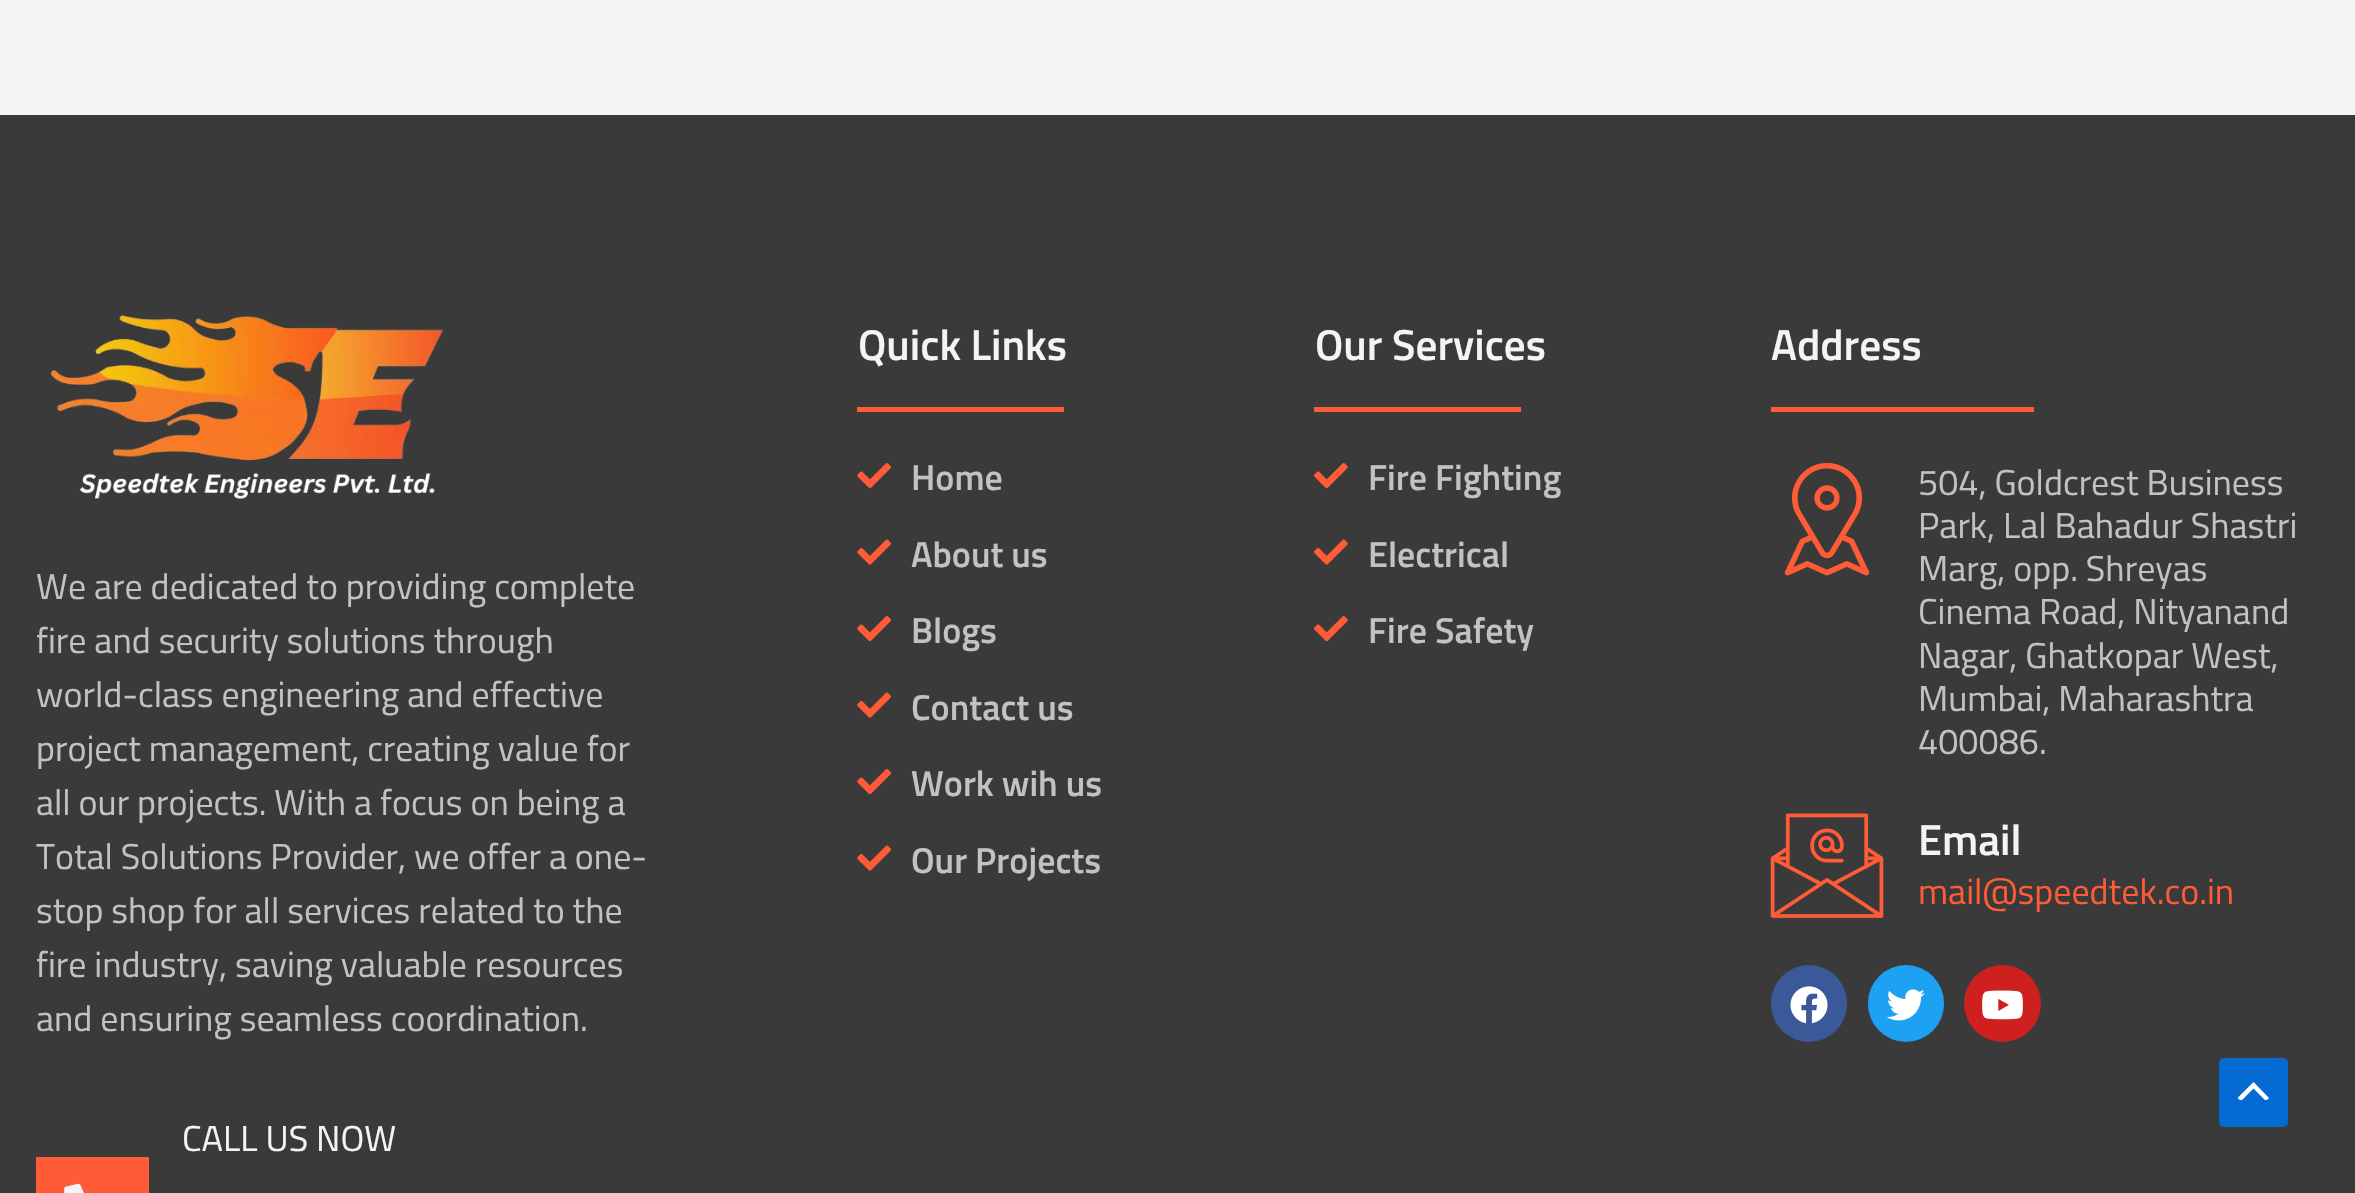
void draw(SkCanvas* c) {
SkPaint p;
p.setAntiAlias(true);
auto F=[&](const char* family, int weight, float size, bool italic = false){SkFontStyle style(weight, SkFontStyle::kNormal_Width,italic ? SkFontStyle::kItalic_Slant : SkFontStyle::kUpright_Slant);SkFont result(fontMgr->matchFamilyStyle(family, style), size);result.setSubpixel(true);return result;};
auto T=[&](const char* s, float x, float y, const SkFont& font){c->drawString(s, x, y, font, p);};
auto R=[&](float x, float y, float w, float h){c->drawRect(SkRect::MakeXYWH(x, y, w, h), p);};
auto Q=[&](float x, float y, float w, float h, float radius){c->drawRoundRect(SkRect::MakeXYWH(x, y, w, h), radius, radius, p);};
auto I=[&](const char* path, float x, float y, float w, float h){auto image = SkImages::DeferredFromEncodedData(SkData::MakeFromFileName(path));c->drawImageRect(image, SkRect::MakeXYWH(x, y, w, h), SkSamplingOptions());};
auto P=[&](const char* data, bool evenOdd = false){SkPath result = *SkParsePath::FromSVGString(data);if (evenOdd) result.setFillType(SkPathFillType::kEvenOdd);return result;};
c->clear(0xfff4f4f4);
p.setColor(0xff3a3a3a);
R(0,115,2355,1078);
I("1.png",50,315,394,184);
auto f1 = F("Titillium Web",400,36);
p.setColor(0xffc2c2c2);
T("We are dedicated to providing complete",36,599,f1);
T("fire and security solutions through",36,653,f1);
T("world-class engineering and effective",36,707,f1);
T("project management, creating value for",36,761,f1);
T("all our projects. With a focus on being a",36,815,f1);
T("Total Solutions Provider, we offer a one-",36,869,f1);
T("stop shop for all services related to the",36,923,f1);
T("fire industry, saving valuable resources",36,977,f1);
T("and ensuring seamless coordination.",36,1031,f1);
p.setColor(0xfff4f4f4);
T("CALL US NOW",182,1151,f1);
p.setColor(0xffff5b36);
R(36,1157,113,36);
I("2.png",64,1183,20,10);
auto f2 = F("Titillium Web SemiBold",600,43.25);
p.setColor(0xfff4f4f4);
T("Quick Links",858,360,f2);
p.setColor(0xffff5b36);
R(857,407,207,5);
I("3.png",857,463,34,26);
auto f3 = F("Titillium Web SemiBold",600,36);
p.setColor(0xffc2c2c2);
T("Home",911,490,f3);
I("4.png",857,539,34,26);
T("About us",911,567,f3);
I("3.png",857,616,34,26);
T("Blogs",911,643,f3);
I("4.png",857,692,34,26);
T("Contact us",911,720,f3);
I("3.png",857,769,34,26);
T("Work wih us",911,796,f3);
I("4.png",857,845,34,26);
T("Our Projects",911,873,f3);
p.setColor(0xfff4f4f4);
T("Our Services",1315,360,f2);
p.setColor(0xffff5b36);
R(1314,407,207,5);
I("5.png",1314,463,34,26);
p.setColor(0xffc2c2c2);
T("Fire Fighting",1368,490,f3);
I("6.png",1314,539,34,26);
T("Electrical",1368,567,f3);
I("5.png",1314,616,34,26);
T("Fire Safety",1368,643,f3);
p.setColor(0xfff4f4f4);
T("Address",1771,360,f2);
p.setColor(0xffff5b36);
R(1771,407,263,5);
I("7.png",1784,463,86,113);
p.setColor(0xffc2c2c2);
T("504, Goldcrest Business",1918,495,f1);
T("Park, Lal Bahadur Shastri",1918,538,f1);
T("Marg, opp. Shreyas",1918,581,f1);
T("Cinema Road, Nityanand",1918,624,f1);
T("Nagar, Ghatkopar West,",1918,668,f1);
T("Mumbai, Maharashtra",1918,711,f1);
T("400086.",1918,754,f1);
I("8.png",1770,813,114,105);
p.setColor(0xfff4f4f4);
T("Email",1918,855,f2);
p.setColor(0xffff5b36);
T("mail@speedtek.co.in",1918,904,f1);
p.setColor(0xff3b5998);
Q(1771,965,76,77,38);
I("9.png",1790,986,38,38);
p.setColor(0xff1da1f2);
Q(1868,965,76,77,38);
I("10.png",1887,989,38,32);
p.setColor(0xffcd201f);
c->drawCircle(2002.5,1003.5,38.5,p);
I("11.png",1982,990,41,30);
p.setColor(0xff046bd2);
Q(2219,1058,69,69,5);
c->save();
c->clipRect(SkRect::MakeXYWH(2225,1080,54,20));
p.setColor(0xffffffff);
c->drawPath(P("M2269 1098l-15.5-16l-16 16l3.5 3l12.5-12.5l12.5 12.5z"),p);
c->restore();
}
